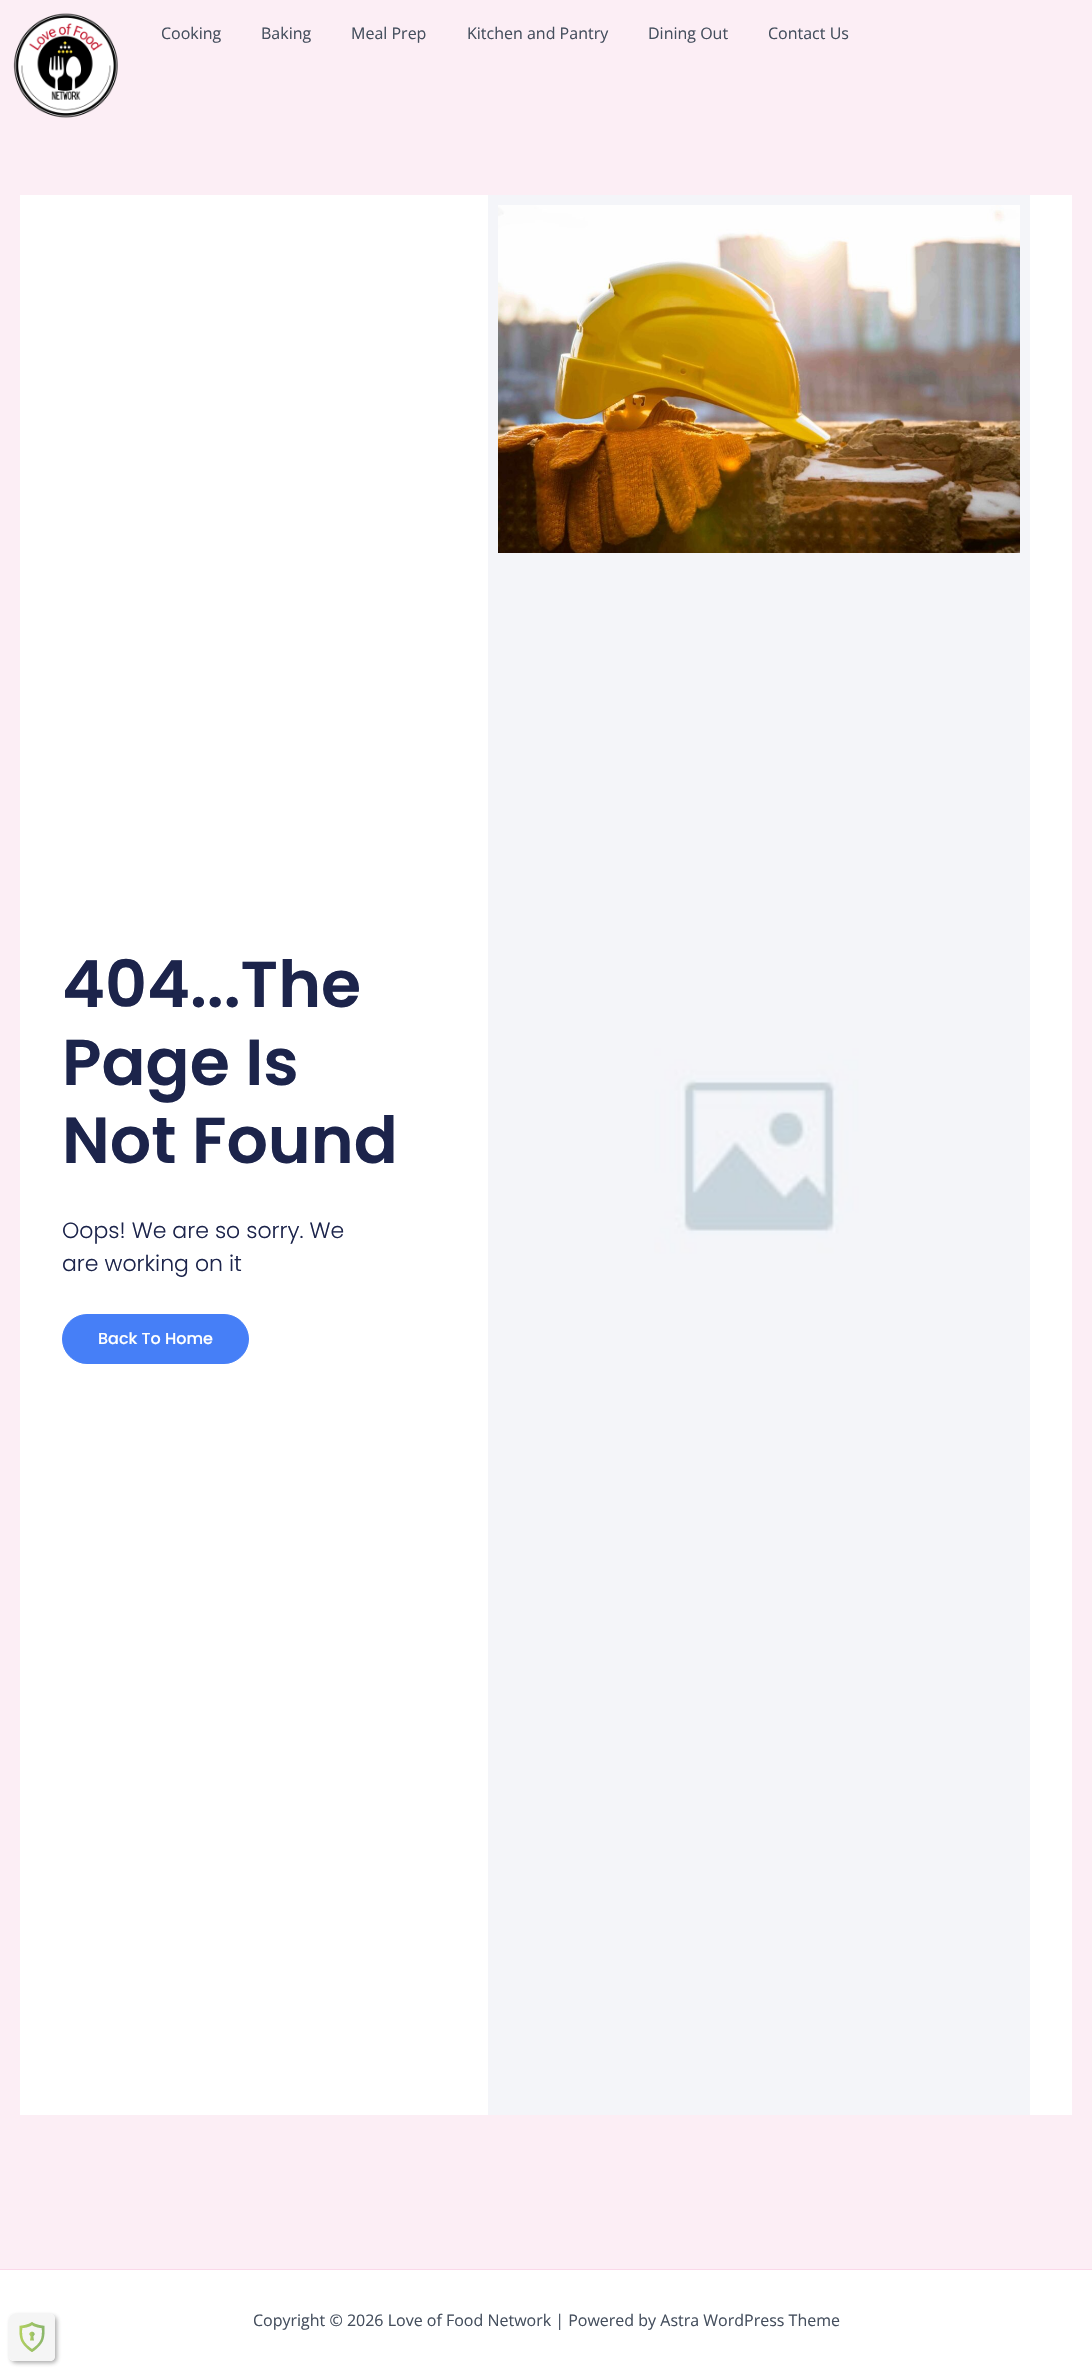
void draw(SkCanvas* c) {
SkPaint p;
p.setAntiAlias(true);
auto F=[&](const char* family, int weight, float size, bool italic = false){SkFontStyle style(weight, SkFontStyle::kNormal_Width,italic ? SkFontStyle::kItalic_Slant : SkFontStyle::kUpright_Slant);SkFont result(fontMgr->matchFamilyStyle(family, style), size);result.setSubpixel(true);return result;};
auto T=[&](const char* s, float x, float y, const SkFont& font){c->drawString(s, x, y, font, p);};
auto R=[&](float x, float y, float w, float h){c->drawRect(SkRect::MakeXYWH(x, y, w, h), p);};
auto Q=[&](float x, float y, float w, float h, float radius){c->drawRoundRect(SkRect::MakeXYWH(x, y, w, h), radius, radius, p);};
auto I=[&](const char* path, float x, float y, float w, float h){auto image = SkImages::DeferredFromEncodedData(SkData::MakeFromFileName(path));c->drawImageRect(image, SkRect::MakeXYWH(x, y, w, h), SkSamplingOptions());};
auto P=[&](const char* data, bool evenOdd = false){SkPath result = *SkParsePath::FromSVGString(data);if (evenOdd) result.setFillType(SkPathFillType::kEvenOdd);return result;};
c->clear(0xfffceef5);
I("1.png",13,13,105,105);
auto f1 = F("Open Sans",400,16);
p.setColor(0xff454f5e);
T("Cooking",161,39,f1);
T("Baking",261,39,f1);
T("Meal Prep",351,39,f1);
T("Kitchen and Pantry",467,39,f1);
T("Dining Out",648,39,f1);
T("Contact Us",768,39,f1);
p.setColor(0xffffffff);
R(20,195,1052,1920);
auto f2 = F("Poppins",600,65);
p.setColor(0xff1c244b);
T("404...The",62,1007,f2);
T("Page Is",62,1085,f2);
T("Not Found",62,1163,f2);
auto f3 = F("Poppins",300,22);
T("Oops! We are so sorry. We",62,1238,f3);
T("are working on it",62,1271,f3);
p.setColor(0xff467ff7);
c->drawRoundRect(SkRect::MakeXYWH(62.5,1314.5,186,49),24.5,24.5,p);
p.setStroke(true);
p.setStrokeWidth(1);
c->drawRoundRect(SkRect::MakeXYWH(62.5,1314.5,186,49),24.5,24.5,p);
auto f4 = F("Poppins",500,16);
p.setStroke(false);
p.setColor(0xffffffff);
T("Back To Home",98,1344,f4);
I("2.png",488,195,542,1920);
I("3.png",498,205,522,348);
R(0,2270,1092,100);
p.setColor(0xfffad8e9);
R(0,2269,1092,1);
p.setColor(0xff454f5e);
T("Copyright © 2026 Love of Food Network | Powered by Astra WordPress Theme",253,2326,f1);
c->save();
c->clipPath(P("M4 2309h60v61h-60zm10 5h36c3 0 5 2 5 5v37c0 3-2 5-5 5h-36c-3 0-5-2-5-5v-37c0-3 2-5 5-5z",true),true);
p.setColor(0x784d4d4d);
p.setMaskFilter(SkMaskFilter::MakeBlur(kNormal_SkBlurStyle, 2));
c->drawRoundRect(SkRect::MakeXYWH(11,2316,46,47),5,5,p);
p.setMaskFilter(nullptr);
c->restore();
p.setColor(0xfcf5f5f5);
Q(9,2314,46,47,5);
I("4.png",19,2322,26,30);
}
